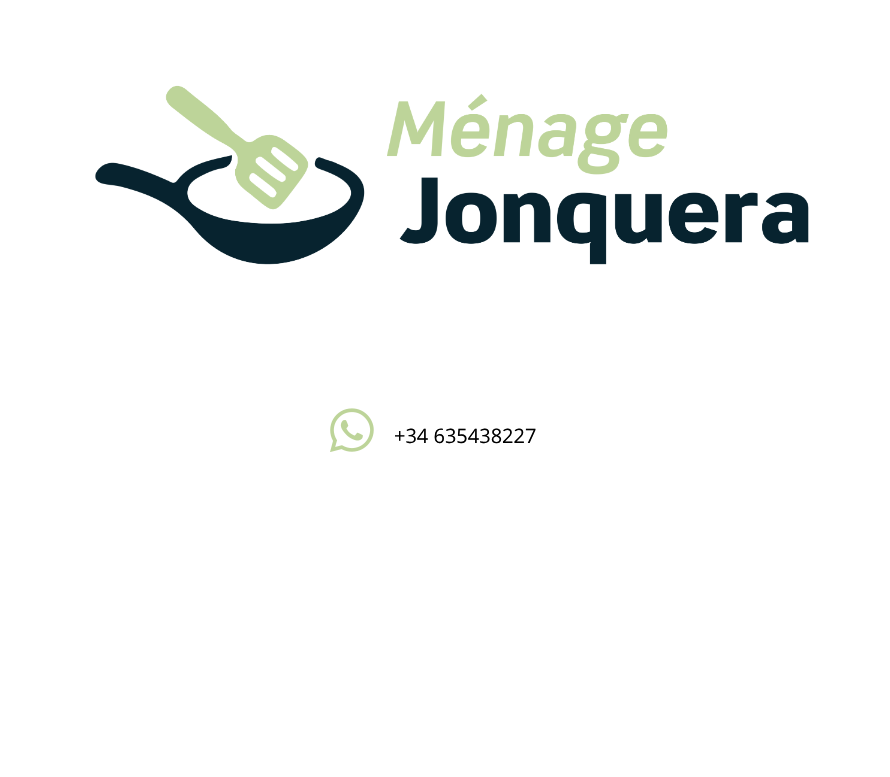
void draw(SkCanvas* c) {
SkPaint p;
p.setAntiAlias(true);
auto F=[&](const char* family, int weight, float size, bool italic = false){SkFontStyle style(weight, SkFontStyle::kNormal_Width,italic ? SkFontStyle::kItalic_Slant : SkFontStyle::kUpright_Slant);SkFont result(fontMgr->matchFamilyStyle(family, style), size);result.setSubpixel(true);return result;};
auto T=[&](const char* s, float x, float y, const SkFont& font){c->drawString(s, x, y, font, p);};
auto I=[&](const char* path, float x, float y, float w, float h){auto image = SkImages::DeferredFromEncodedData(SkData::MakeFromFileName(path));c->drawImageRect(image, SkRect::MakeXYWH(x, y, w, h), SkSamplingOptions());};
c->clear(0xffffffff);
I("1.png",95,85,714,180);
I("2.png",330,408,44,44);
auto f1 = F("Open Sans",400,20);
p.setColor(0xff000000);
T("+34 635438227",394,443,f1);
}
